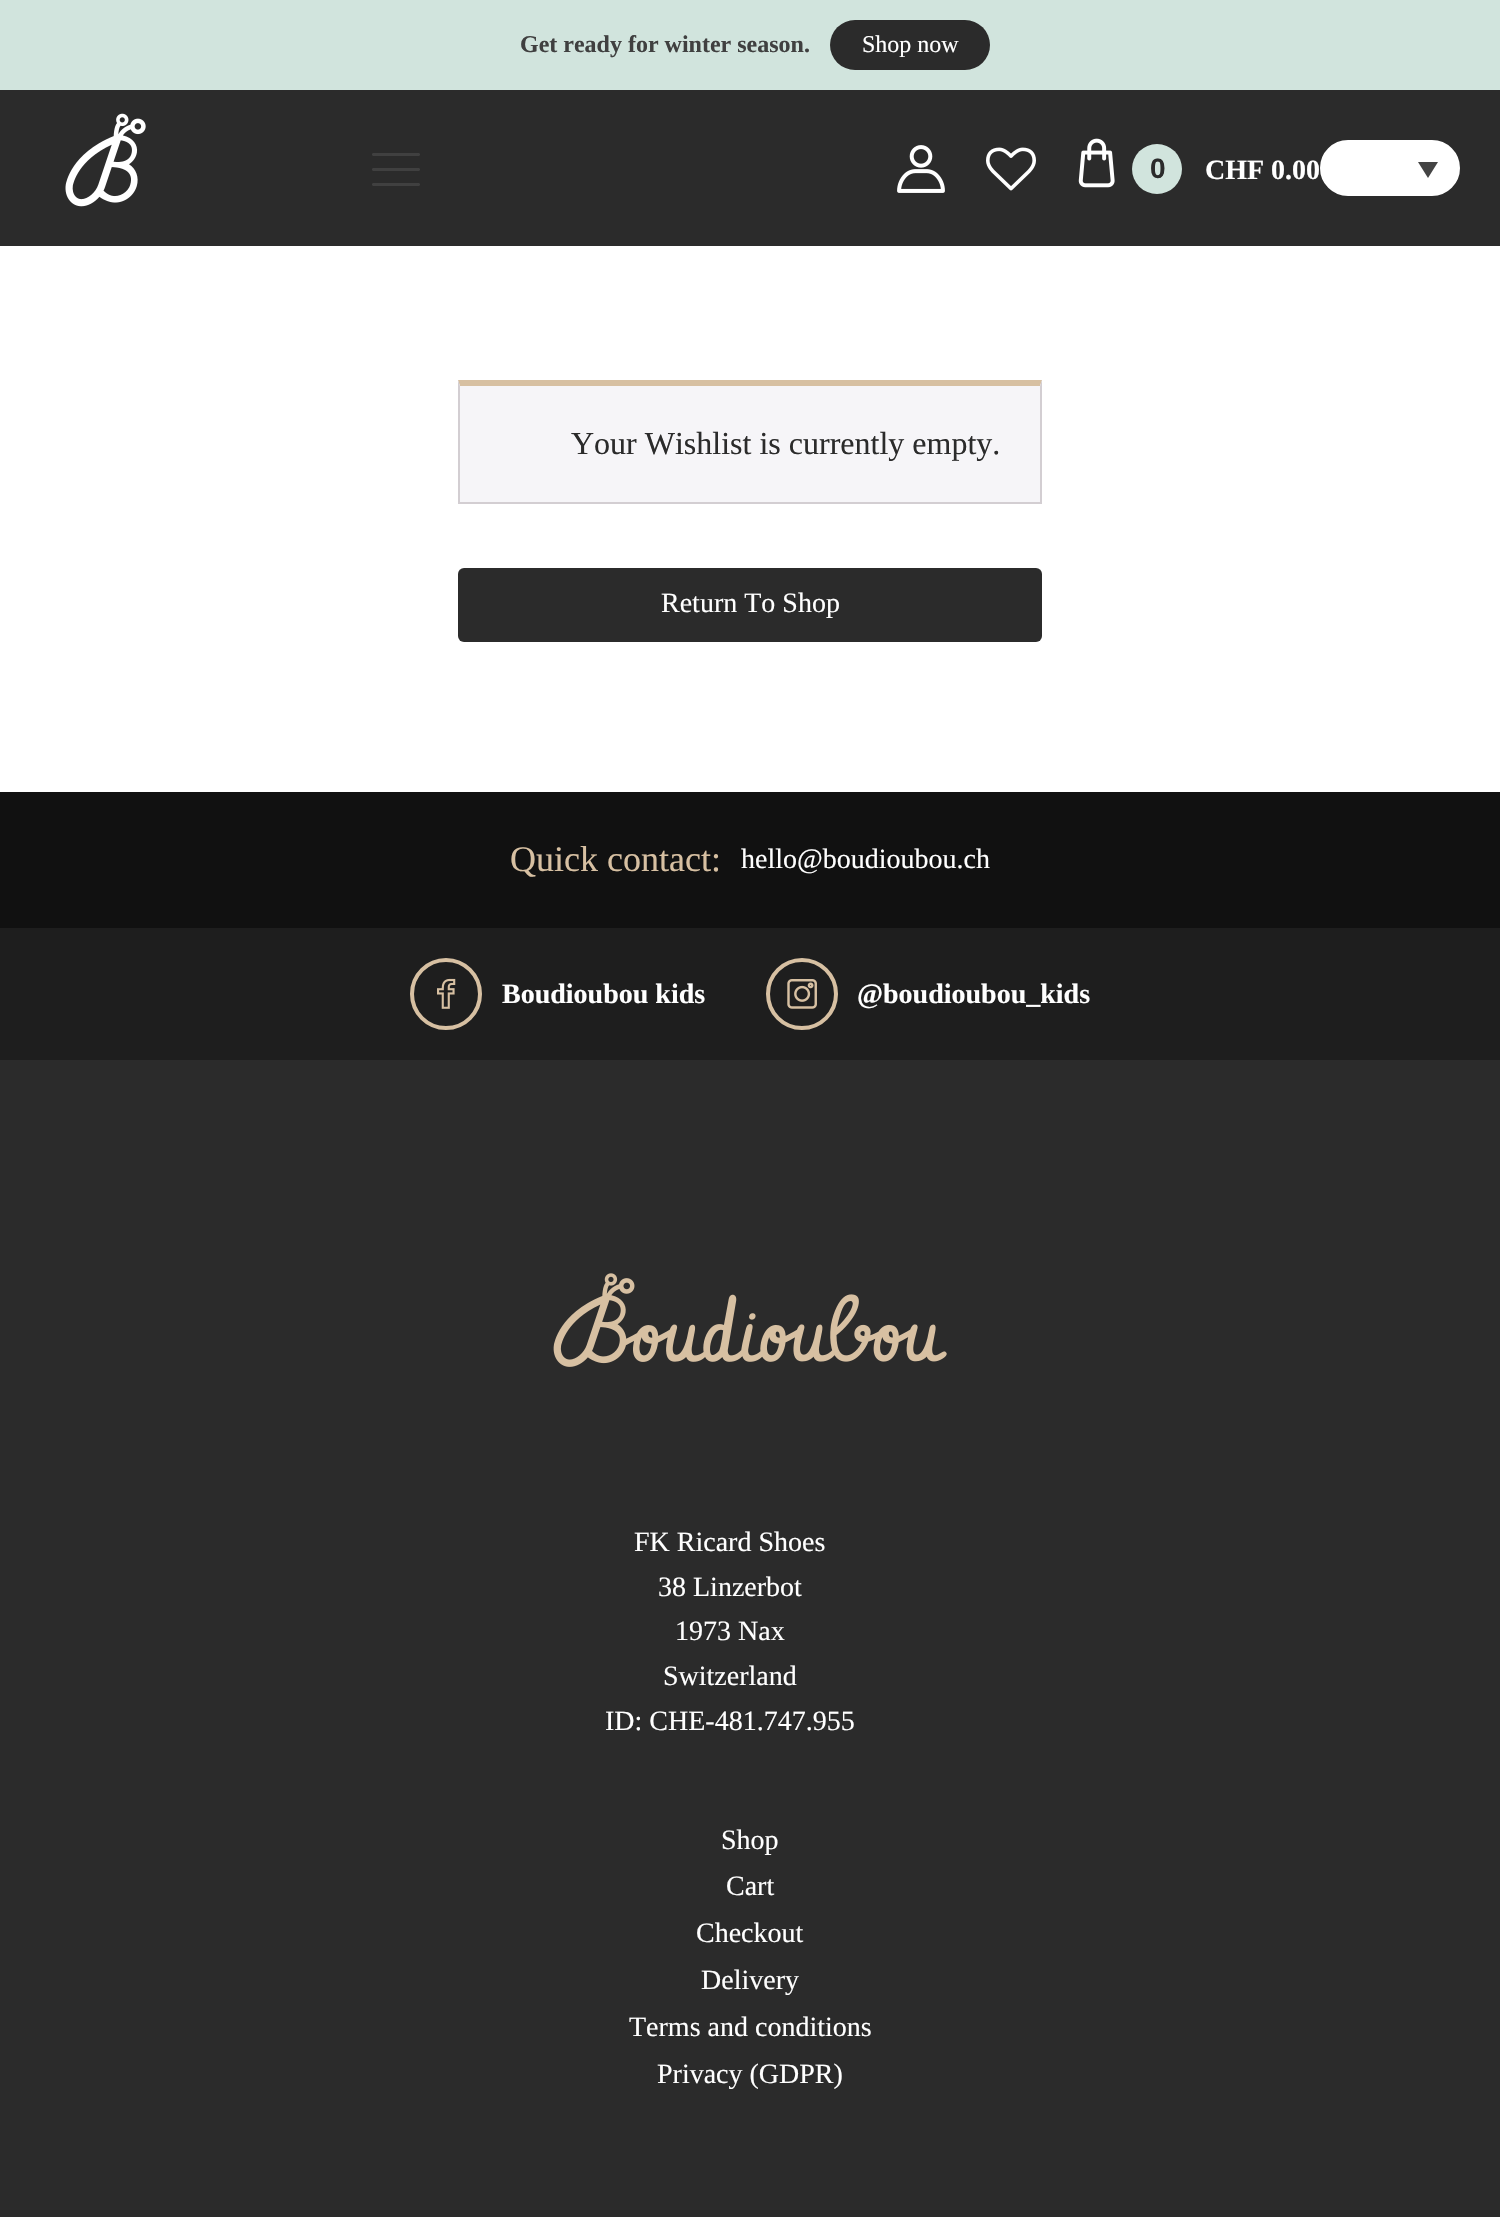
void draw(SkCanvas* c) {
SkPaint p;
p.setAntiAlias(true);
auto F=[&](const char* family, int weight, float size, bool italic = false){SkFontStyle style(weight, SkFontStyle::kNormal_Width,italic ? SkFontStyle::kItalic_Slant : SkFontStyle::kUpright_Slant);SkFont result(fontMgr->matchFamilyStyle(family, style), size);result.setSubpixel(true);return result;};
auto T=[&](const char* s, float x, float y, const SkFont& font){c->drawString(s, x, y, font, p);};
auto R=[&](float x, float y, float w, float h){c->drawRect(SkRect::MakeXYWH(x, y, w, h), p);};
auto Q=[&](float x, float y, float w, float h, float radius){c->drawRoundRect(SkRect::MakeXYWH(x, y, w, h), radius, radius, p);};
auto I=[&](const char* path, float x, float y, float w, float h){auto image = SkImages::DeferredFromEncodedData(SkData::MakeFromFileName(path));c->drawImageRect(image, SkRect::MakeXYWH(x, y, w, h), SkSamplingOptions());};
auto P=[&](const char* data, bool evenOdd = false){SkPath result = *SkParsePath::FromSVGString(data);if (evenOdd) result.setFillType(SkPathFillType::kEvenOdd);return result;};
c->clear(0xffffffff);
p.setColor(0xff2b2b2b);
R(0,90,1500,156);
p.setColor(0xffd1e4dd);
R(0,0,1500,90);
auto f1 = F("Liberation Serif",700,24);
p.setColor(0xff404040);
T("Get ready for winter season.",520,52,f1);
p.setColor(0xff2b2b2b);
Q(830,20,160,50,25);
auto f2 = F("Liberation Serif",400,24);
p.setColor(0xffffffff);
T("Shop now",862,52,f2);
I("1.png",65,113,81,94);
I("2.png",372,153,48,33);
I("3.png",897,145,48,48);
I("4.png",986,147,50,44);
I("5.png",1078,138,37,50);
p.setColor(0xffd1e4dd);
c->drawCircle(1157,169,25,p);
auto f3 = F("Liberation Sans",700,28);
p.setColor(0xff2b2b2b);
T("0",1150,178,f3);
auto f4 = F("Liberation Serif",700,28);
p.setColor(0xffffffff);
T("CHF 0.00",1205,179,f4);
c->drawRoundRect(SkRect::MakeXYWH(1321,141,138,54),27,27,p);
p.setStroke(true);
p.setStrokeWidth(2);
c->drawRoundRect(SkRect::MakeXYWH(1321,141,138,54),27,27,p);
p.setStroke(false);
p.setColor(0xff444444);
c->drawPath(P("M1418 162h20l-10 16z"),p);
p.setColor(0xfff6f5f8);
R(460,386,580,116);
p.setColor(0xffd7c0a2);
c->drawPath(P("M458 380h584l-2 6h-580z"),p);
p.setColor(0xffd3ced2);
c->drawPath(P("M1042 380v124l-2-2v-116z"),p);
R(458,502,584,2);
c->drawPath(P("M458 504v-124l2 6v116z"),p);
auto f5 = F("Liberation Serif",400,32);
p.setColor(0xff2b2b2b);
T("Your Wishlist is currently empty.",571,454,f5);
Q(458,568,584,74,6);
auto f6 = F("Liberation Serif",400,28);
p.setColor(0xffffffff);
T("Return To Shop",661,612,f6);
p.setColor(0xff111111);
R(0,792,1500,136);
auto f7 = F("Liberation Serif",400,36);
p.setColor(0xffd7c0a2);
T("Quick contact:",510,871,f7);
p.setColor(0xffffffff);
T("hello@boudioubou.ch",741,868,f6);
p.setColor(0xff1e1e1e);
R(0,928,1500,132);
p.setStroke(true);
p.setStrokeWidth(4);
p.setColor(0xffd7c0a2);
c->drawCircle(446,994,34,p);
I("6.png",437,978,19,31);
p.setStroke(false);
p.setColor(0xffffffff);
T("Boudioubou kids",502,1003,f4);
p.setStroke(true);
p.setColor(0xffd7c0a2);
c->drawCircle(802,994,34,p);
I("7.png",787,979,30,30);
p.setStroke(false);
p.setColor(0xffffffff);
T("@boudioubou_kids",857,1003,f4);
p.setColor(0xff2b2b2b);
R(0,1060,1500,1157);
I("8.png",553,1273,394,94);
p.setColor(0xffffffff);
T("FK Ricard Shoes",634,1551,f6);
T("38 Linzerbot",658,1596,f6);
T("1973 Nax",675,1640,f6);
T("Switzerland",663,1685,f6);
T("ID: CHE-481.747.955",605,1730,f6);
T("Shop",721,1849,f6);
T("Cart",726,1895,f6);
T("Checkout",696,1942,f6);
T("Delivery",701,1989,f6);
T("Terms and conditions",629,2036,f6);
T("Privacy (GDPR)",657,2083,f6);
}
